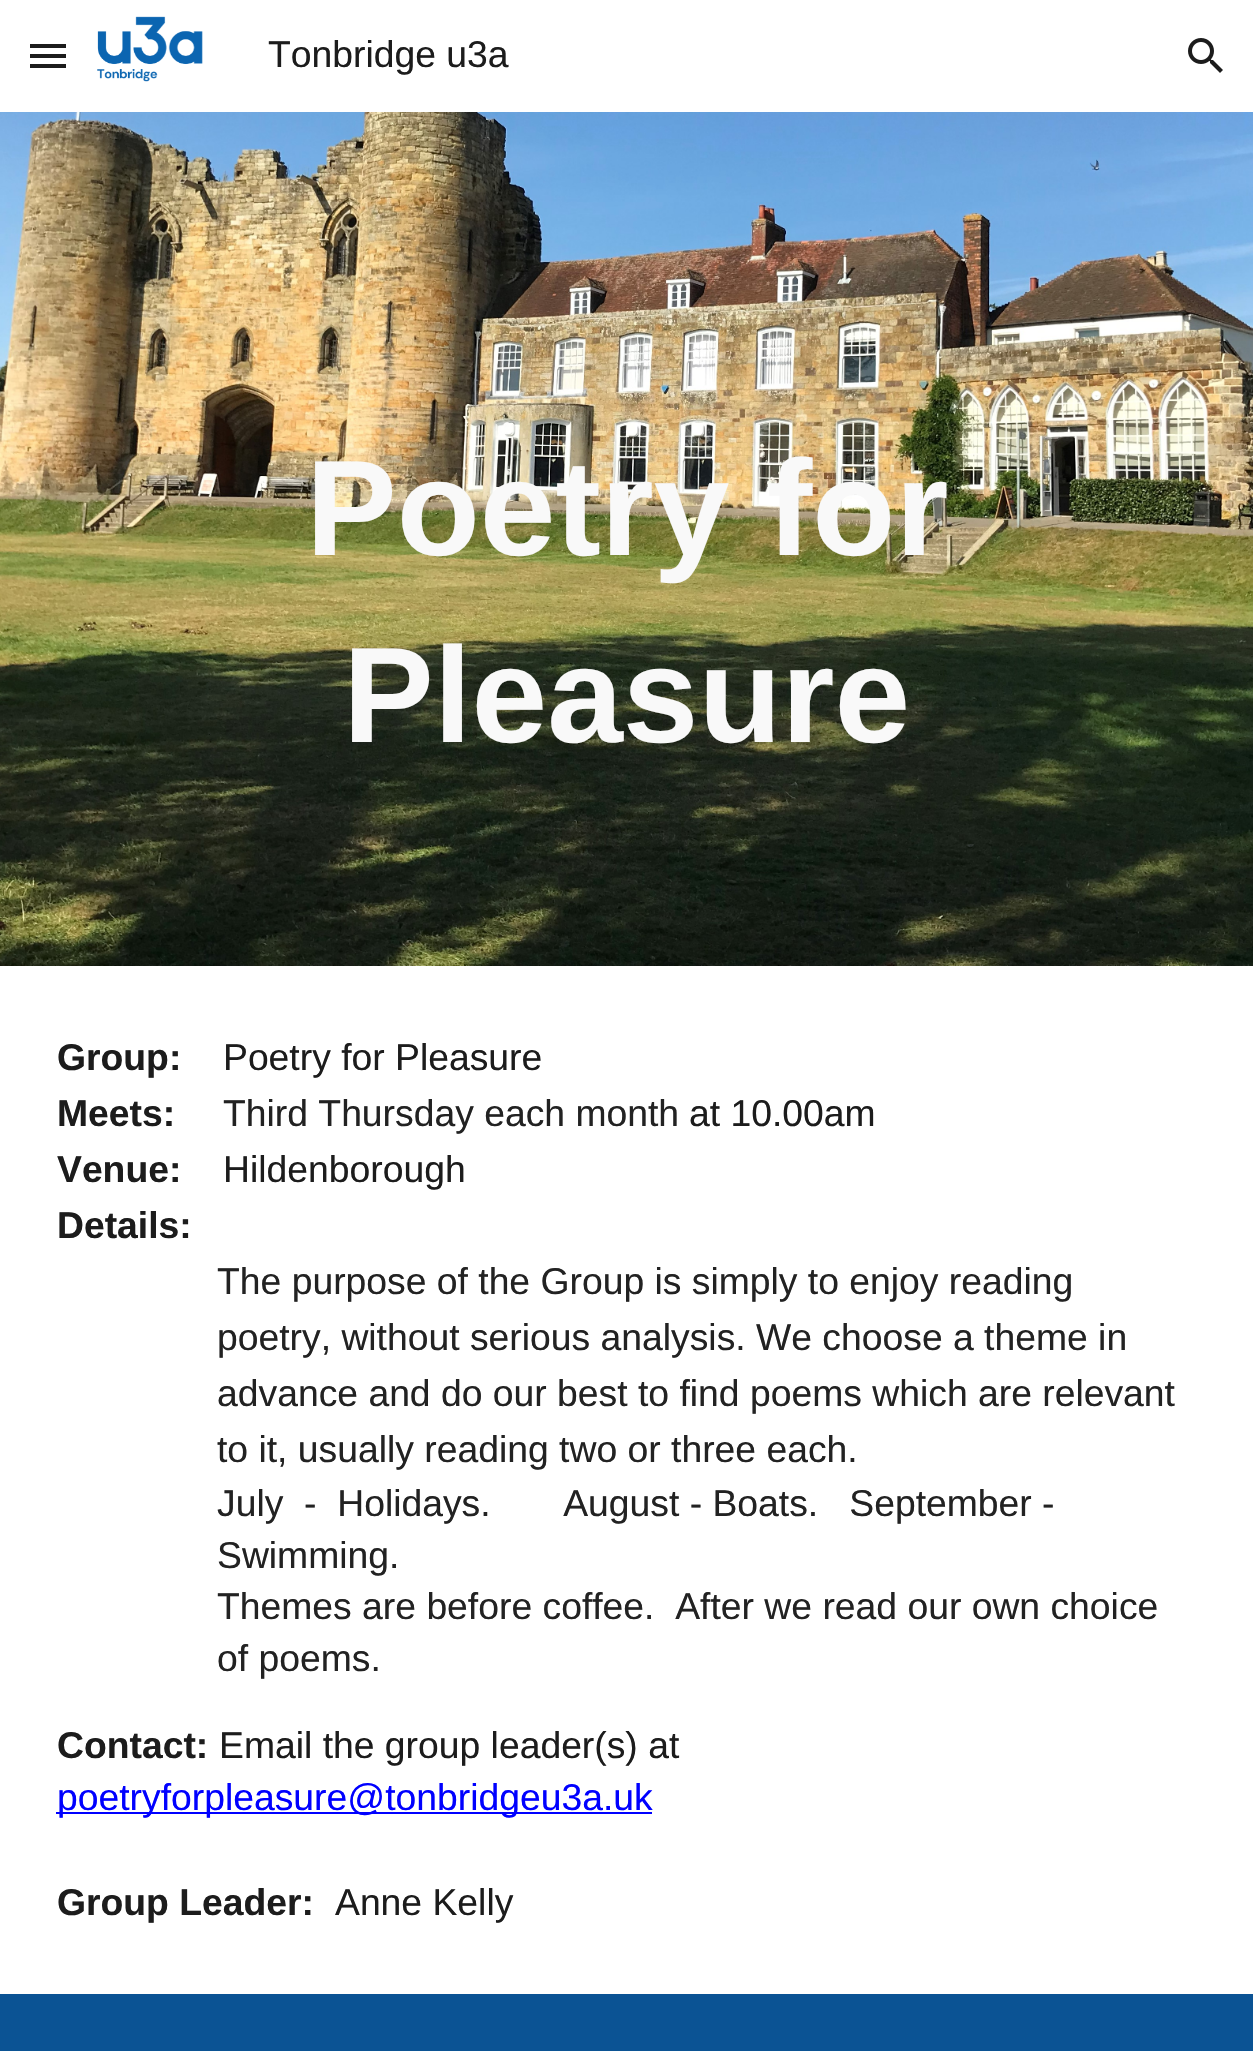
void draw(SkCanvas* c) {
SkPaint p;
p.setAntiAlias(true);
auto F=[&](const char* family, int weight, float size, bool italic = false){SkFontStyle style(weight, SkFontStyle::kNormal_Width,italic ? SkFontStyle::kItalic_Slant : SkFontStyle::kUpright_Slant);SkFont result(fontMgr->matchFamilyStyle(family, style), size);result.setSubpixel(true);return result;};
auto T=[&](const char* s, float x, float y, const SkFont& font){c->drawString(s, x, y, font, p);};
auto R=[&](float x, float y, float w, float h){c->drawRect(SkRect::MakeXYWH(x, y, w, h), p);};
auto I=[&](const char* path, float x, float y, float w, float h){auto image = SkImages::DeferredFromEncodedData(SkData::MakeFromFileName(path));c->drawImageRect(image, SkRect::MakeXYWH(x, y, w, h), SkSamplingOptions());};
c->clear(0xffffffff);
p.setColor(0xff1c1c1c);
R(30,44,36,4);
R(30,54,36,4);
R(30,64,36,4);
I("1.png",97,16,106,66);
auto f1 = F("Liberation Sans",400,37.3);
T("Tonbridge u3a",268,67,f1);
I("2.png",1188,38,35,35);
I("3.png",0,112,1253,854);
auto f2 = F("Liberation Sans",700,136);
p.setColor(0xfff9f9f9);
T("Poetry for",306,555,f2);
T("Pleasure",343,742,f2);
auto f3 = F("Liberation Sans",700,37.3);
p.setColor(0xff1c1c1c);
T("Group:",57,1070,f3);
T("Poetry for Pleasure",223,1070,f1);
T("Meets:",57,1126,f3);
p.setColor(0xff222222);
T("Third Thursday each month",223,1126,f1);
p.setColor(0xff1c1c1c);
T("at 10.00am",689,1126,f1);
T("Venue:",57,1182,f3);
T("Hildenborough",223,1182,f1);
T("Details:",57,1238,f3);
p.setColor(0xff222222);
T("The purpose of the Group is simply to enjoy reading",217,1294,f1);
T("poetry, without serious analysis. We choose a theme in",217,1350,f1);
T("advance and do our best to find poems which are relevant",217,1406,f1);
T("to it, usually reading two or three each.",217,1462,f1);
T("July  -  Holidays.       August - Boats.   September -",217,1516,f1);
T("Swimming.",217,1568,f1);
T("Themes are before coffee.  After we read our own choice",217,1619,f1);
T("of poems.",217,1671,f1);
p.setColor(0xff1c1c1c);
T("Contact:",57,1758,f3);
T("Email the group leader(s) at",219,1758,f1);
p.setColor(0xff0000ff);
R(56,1812,596,2);
T("poetryforpleasure@tonbridgeu3a.uk",57,1810,f1);
p.setColor(0xff1c1c1c);
T("Group Leader:",57,1915,f3);
T("Anne Kelly",335,1915,f1);
p.setColor(0xff0b5394);
R(0,1994,1253,57);
}
